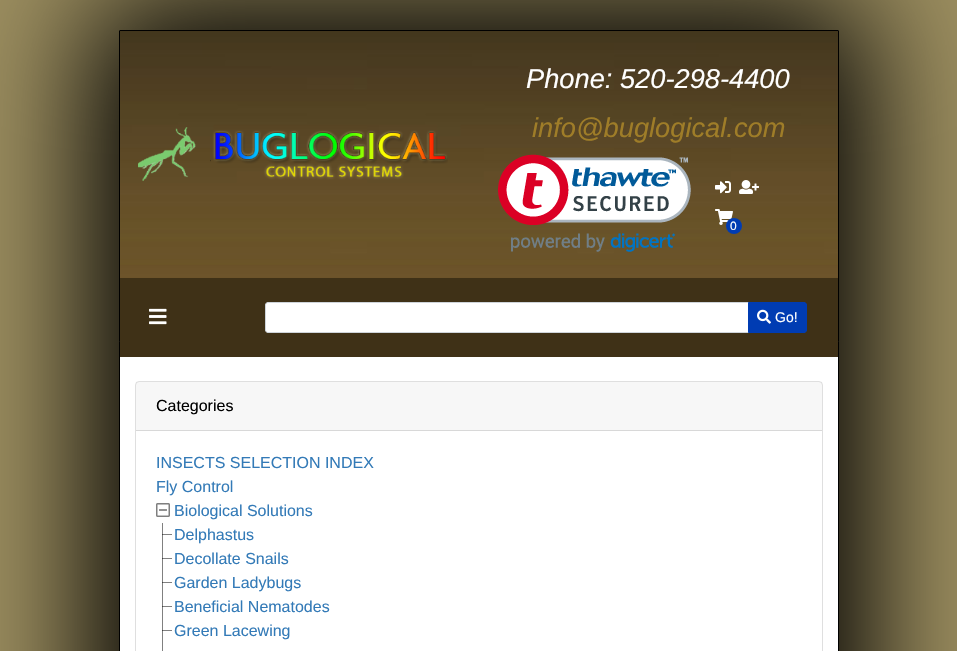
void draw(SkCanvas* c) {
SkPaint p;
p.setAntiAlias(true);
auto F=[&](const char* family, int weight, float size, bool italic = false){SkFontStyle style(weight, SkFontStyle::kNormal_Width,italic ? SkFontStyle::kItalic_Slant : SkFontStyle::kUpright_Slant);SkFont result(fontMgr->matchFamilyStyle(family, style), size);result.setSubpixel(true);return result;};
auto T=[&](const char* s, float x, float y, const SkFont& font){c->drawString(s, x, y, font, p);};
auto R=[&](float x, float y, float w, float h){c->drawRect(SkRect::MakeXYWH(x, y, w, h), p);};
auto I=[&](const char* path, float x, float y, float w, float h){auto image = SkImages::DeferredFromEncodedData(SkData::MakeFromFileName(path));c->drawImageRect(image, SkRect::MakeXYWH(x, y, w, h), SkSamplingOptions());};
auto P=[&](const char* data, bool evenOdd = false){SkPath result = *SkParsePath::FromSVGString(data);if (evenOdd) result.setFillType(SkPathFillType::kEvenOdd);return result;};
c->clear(0xff9d8f60);
p.setColor(0xff000000);
p.setMaskFilter(SkMaskFilter::MakeBlur(kNormal_SkBlurStyle, 65));
c->drawRoundRect(SkRect::MakeXYWH(89,0,780,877),31,31,p);
p.setMaskFilter(nullptr);
p.setStroke(true);
p.setStrokeWidth(1);
c->drawRoundRect(SkRect::MakeXYWH(119.5,30.5,719,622),.5,.5,p);
I("1.png",120,31,718,247);
I("2.png",138,127,310,54);
auto f1 = F("Liberation Sans",400,27.25,true);
p.setStroke(false);
p.setColor(0xffffffff);
T("Phone: 520-298-4400",526,88,f1);
p.setColor(0xff9f7d28);
T("info@buglogical.com",532,137,f1);
I("3.png",498,154,193,98);
I("4.png",715,181,16,13);
I("5.png",739,180,20,14);
I("6.png",715,209,18,16);
p.setColor(0xff003cb3);
c->drawCircle(734,226,8,p);
auto f2 = F("Liberation Sans",400,12);
p.setColor(0xffffffff);
T("0",730,230,f2);
p.setColor(0xff3f3117);
R(120,278,718,79);
I("7.png",149,308,18,17);
p.setColor(0xffffffff);
c->drawPath(P("M268 302.5h480.5v30h-480.5c-1.5 0-2.5-1-2.5-2.5v-25c0-1.5 1-2.5 2.5-2.5z"),p);
p.setStroke(true);
p.setColor(0xffced4da);
c->drawPath(P("M268 302.5h480.5v30h-480.5c-1.5 0-2.5-1-2.5-2.5v-25c0-1.5 1-2.5 2.5-2.5z"),p);
p.setStroke(false);
p.setColor(0xff003cb3);
c->drawPath(P("M748.5 302.5h55.5c1.5 0 2.5 1 2.5 2.5v25c0 1.5-1 2.5-2.5 2.5h-55.5z"),p);
p.setStroke(true);
c->drawPath(P("M748.5 302.5h55.5c1.5 0 2.5 1 2.5 2.5v25c0 1.5-1 2.5-2.5 2.5h-55.5z"),p);
I("8.png",757,309,14,15);
auto f3 = F("Liberation Sans",400,14);
p.setStroke(false);
p.setColor(0xffffffff);
T("Go!",775,322,f3);
R(120,357,718,294);
p.setColor(0xff808080);
R(162,630,10,1);
R(162,606,10,1);
R(162,582,10,1);
R(162,558,10,1);
R(162,534,10,1);
p.setStroke(true);
p.setColor(0xffdfdfdf);
c->drawRoundRect(SkRect::MakeXYWH(135.5,381.5,687,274),3.5,3.5,p);
p.setStroke(false);
p.setColor(0x08000000);
R(136,382,686,48);
p.setColor(0xffd8d8d8);
R(136,430,686,1);
auto f4 = F("Liberation Sans",400,16);
p.setColor(0xff000000);
T("Categories",156,411,f4);
p.setColor(0xff337ab7);
T("INSECTS SELECTION INDEX",156,468,f4);
T("Fly Control",156,492,f4);
I("9.png",156,503,14,14);
T("Biological Solutions",174,516,f4);
p.setColor(0xff808080);
R(162,523,1,128);
p.setColor(0xff404040);
R(162,630,1,1);
R(162,606,1,1);
R(162,582,1,1);
R(162,558,1,1);
R(162,534,1,1);
p.setColor(0xff337ab7);
T("Delphastus",174,540,f4);
T("Decollate Snails",174,564,f4);
T("Garden Ladybugs",174,588,f4);
T("Beneficial Nematodes",174,612,f4);
T("Green Lacewing",174,636,f4);
}
